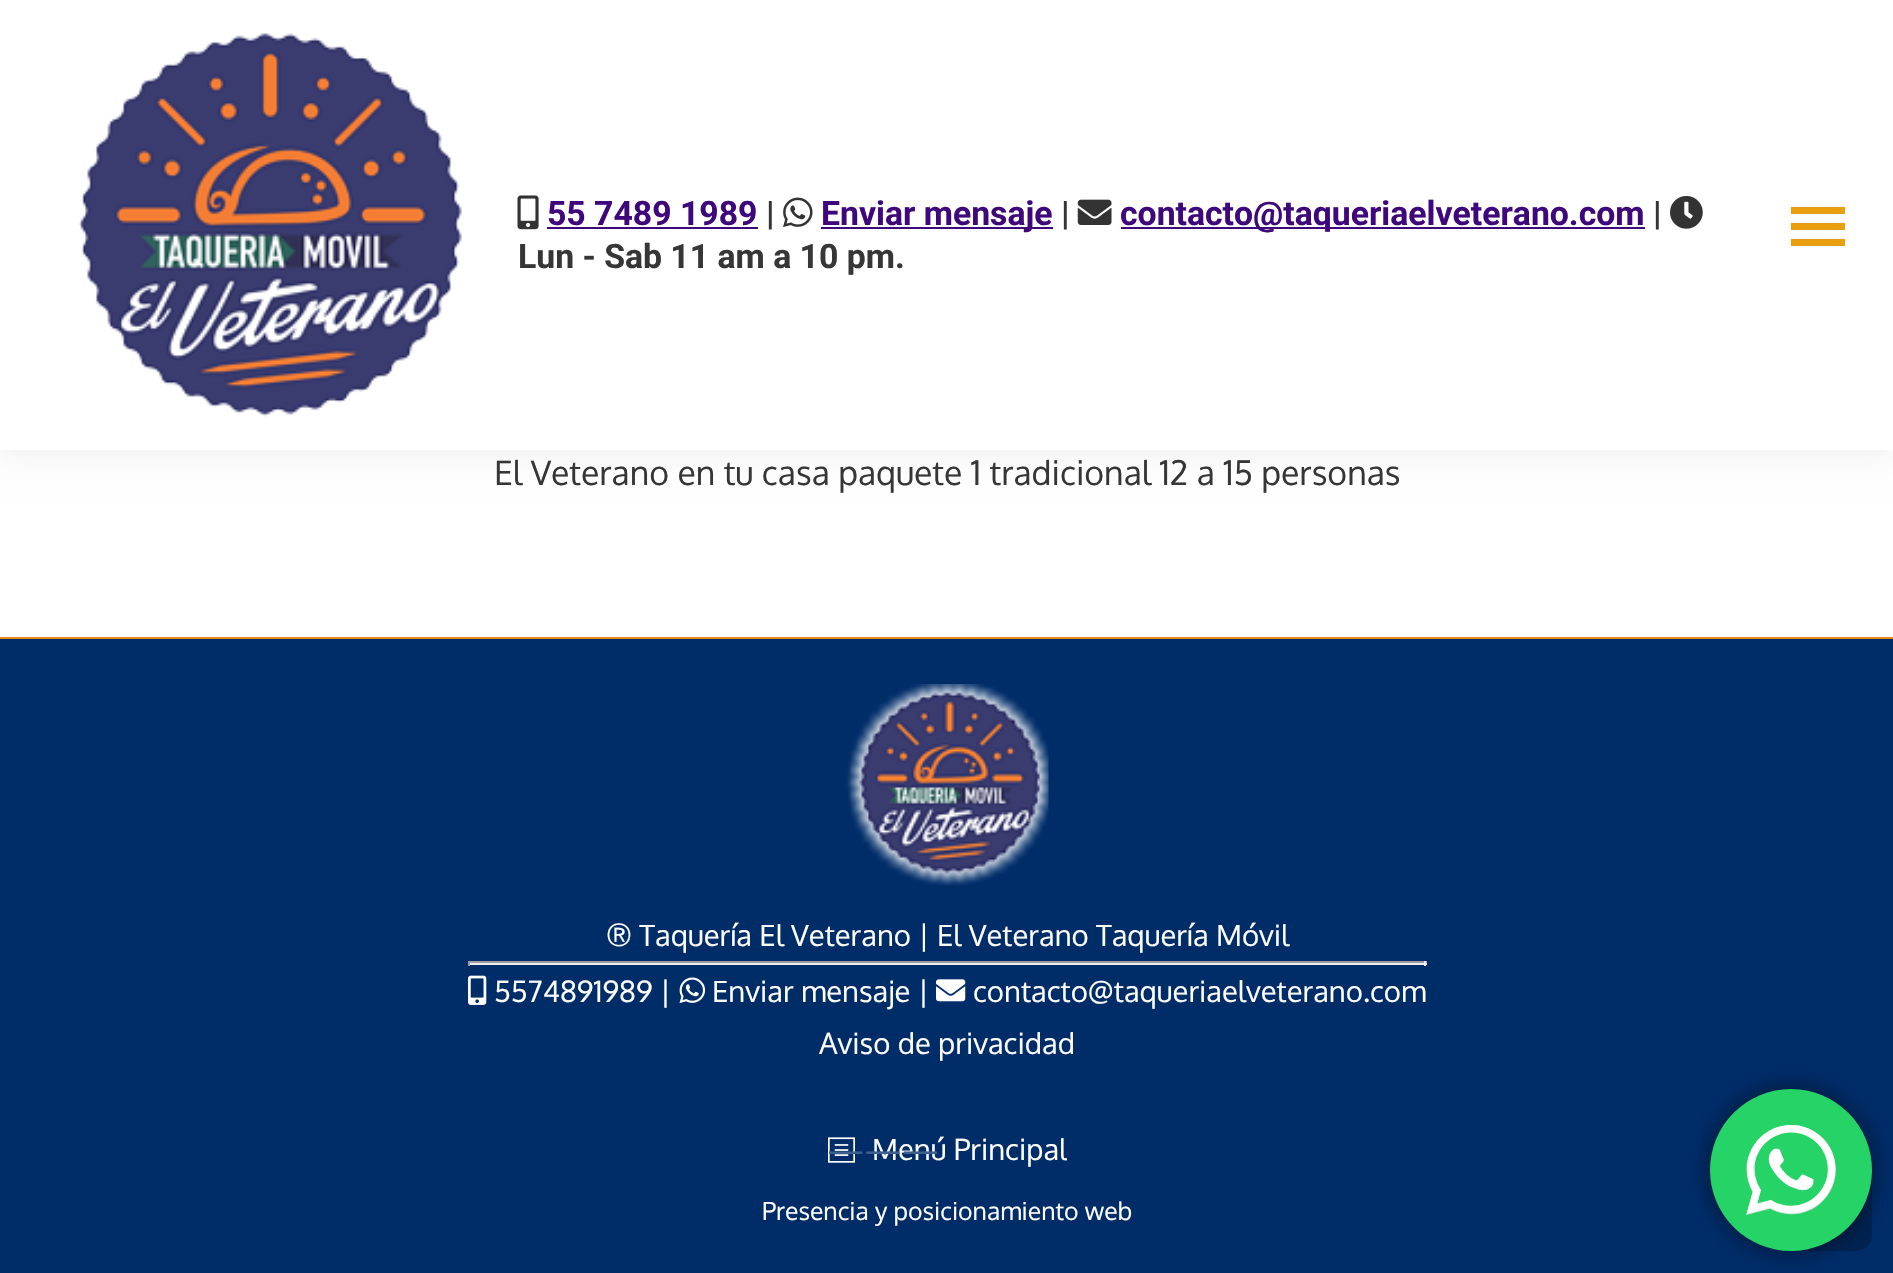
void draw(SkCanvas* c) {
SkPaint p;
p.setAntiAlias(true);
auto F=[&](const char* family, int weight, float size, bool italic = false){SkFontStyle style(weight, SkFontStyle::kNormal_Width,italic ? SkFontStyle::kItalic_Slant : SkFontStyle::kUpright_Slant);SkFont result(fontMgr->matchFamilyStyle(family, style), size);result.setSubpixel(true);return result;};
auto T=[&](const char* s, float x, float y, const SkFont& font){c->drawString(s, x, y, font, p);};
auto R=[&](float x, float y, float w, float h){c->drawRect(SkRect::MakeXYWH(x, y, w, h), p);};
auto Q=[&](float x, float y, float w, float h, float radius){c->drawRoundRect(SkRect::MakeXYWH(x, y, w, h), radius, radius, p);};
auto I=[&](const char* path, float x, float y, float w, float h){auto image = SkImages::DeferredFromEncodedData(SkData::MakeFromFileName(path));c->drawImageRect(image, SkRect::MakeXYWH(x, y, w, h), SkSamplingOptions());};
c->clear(0xffffffff);
p.setColor(0x12000000);
p.setMaskFilter(SkMaskFilter::MakeBlur(kNormal_SkBlurStyle, 17));
c->drawRect(SkRect::MakeXYWH(-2,-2,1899,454),p);
p.setMaskFilter(nullptr);
p.setColor(0xffffffff);
R(0,0,1893,450);
I("1.png",78,33,384,384);
I("2.png",517,195,22,35);
auto f1 = F("Roboto",700,33.75);
p.setColor(0xff3e087c);
T("55 7489 1989",547,225,f1);
R(547,227,211,2);
p.setColor(0xff363636);
T("|",766,225,f1);
I("3.png",783,197,30,30);
p.setColor(0xff3e087c);
R(821,227,232,2);
T("Enviar mensaje",821,225,f1);
p.setColor(0xff363636);
T("|",1061,225,f1);
I("4.png",1077,199,35,26);
p.setColor(0xff3e087c);
R(1121,227,524,2);
T("contacto@taqueriaelveterano.com",1120,225,f1);
p.setColor(0xff363636);
T("|",1653,225,f1);
I("5.png",1670,196,33,33);
T("Lun - Sab 11 am a 10 pm.",518,268,f1);
p.setColor(0xffe8a010);
R(1791,207,54,7);
R(1791,223,54,7);
R(1791,239,54,7);
auto f2 = F("Oxygen",400,33.75);
p.setColor(0xff363636);
T("El Veterano en tu casa paquete 1 tradicional 12 a 15 personas",494,485,f2);
p.setColor(0xff002c68);
R(0,639,1893,634);
p.setColor(0xffec851a);
R(0,637,1893,2);
I("6.png",846,684,203,202);
auto f3 = F("Oxygen",400,29.25);
p.setColor(0xffffffff);
T("® Taquería El Veterano | El Veterano Taquería Móvil",606,946,f3);
p.setColor(0xff9f9f9f);
R(468,961,959,2);
p.setColor(0xffeeeeee);
R(1424,961,2,5);
R(468,963,959,2);
p.setColor(0xff9f9f9f);
R(468,961,2,5);
I("7.png",468,975,19,30);
p.setColor(0xffffffff);
T("5574891989 |",494,1002,f3);
I("8.png",679,977,27,26);
T("Enviar mensaje |",712,1002,f3);
I("9.png",936,979,30,23);
T("contacto@taqueriaelveterano.com",973,1002,f3);
T("Aviso de privacidad",819,1054,f3);
I("10.png",828,1137,27,26);
c->save();
c->clipRect(SkRect::MakeXYWH(828,1130,239,38));
T("Menú Principal",872,1160,f3);
c->restore();
auto f4 = F("Oxygen",400,31.5);
p.setColor(0xff3e5f8d);
T("———",827,1162,f4);
auto f5 = F("Oxygen",400,24.75);
p.setColor(0xffffffff);
T("Presencia y posicionamiento web",762,1220,f5);
p.setColor(0xff002353);
Q(1782,1161,90,90,16);
p.setColor(0x80000000);
p.setMaskFilter(SkMaskFilter::MakeBlur(kNormal_SkBlurStyle, 12.5));
c->drawRoundRect(SkRect::MakeXYWH(1710,1089,162,162),81,81,p);
p.setMaskFilter(nullptr);
p.setColor(0xff25d366);
c->drawCircle(1791,1170,81,p);
I("11.png",1746,1125,90,90);
}
